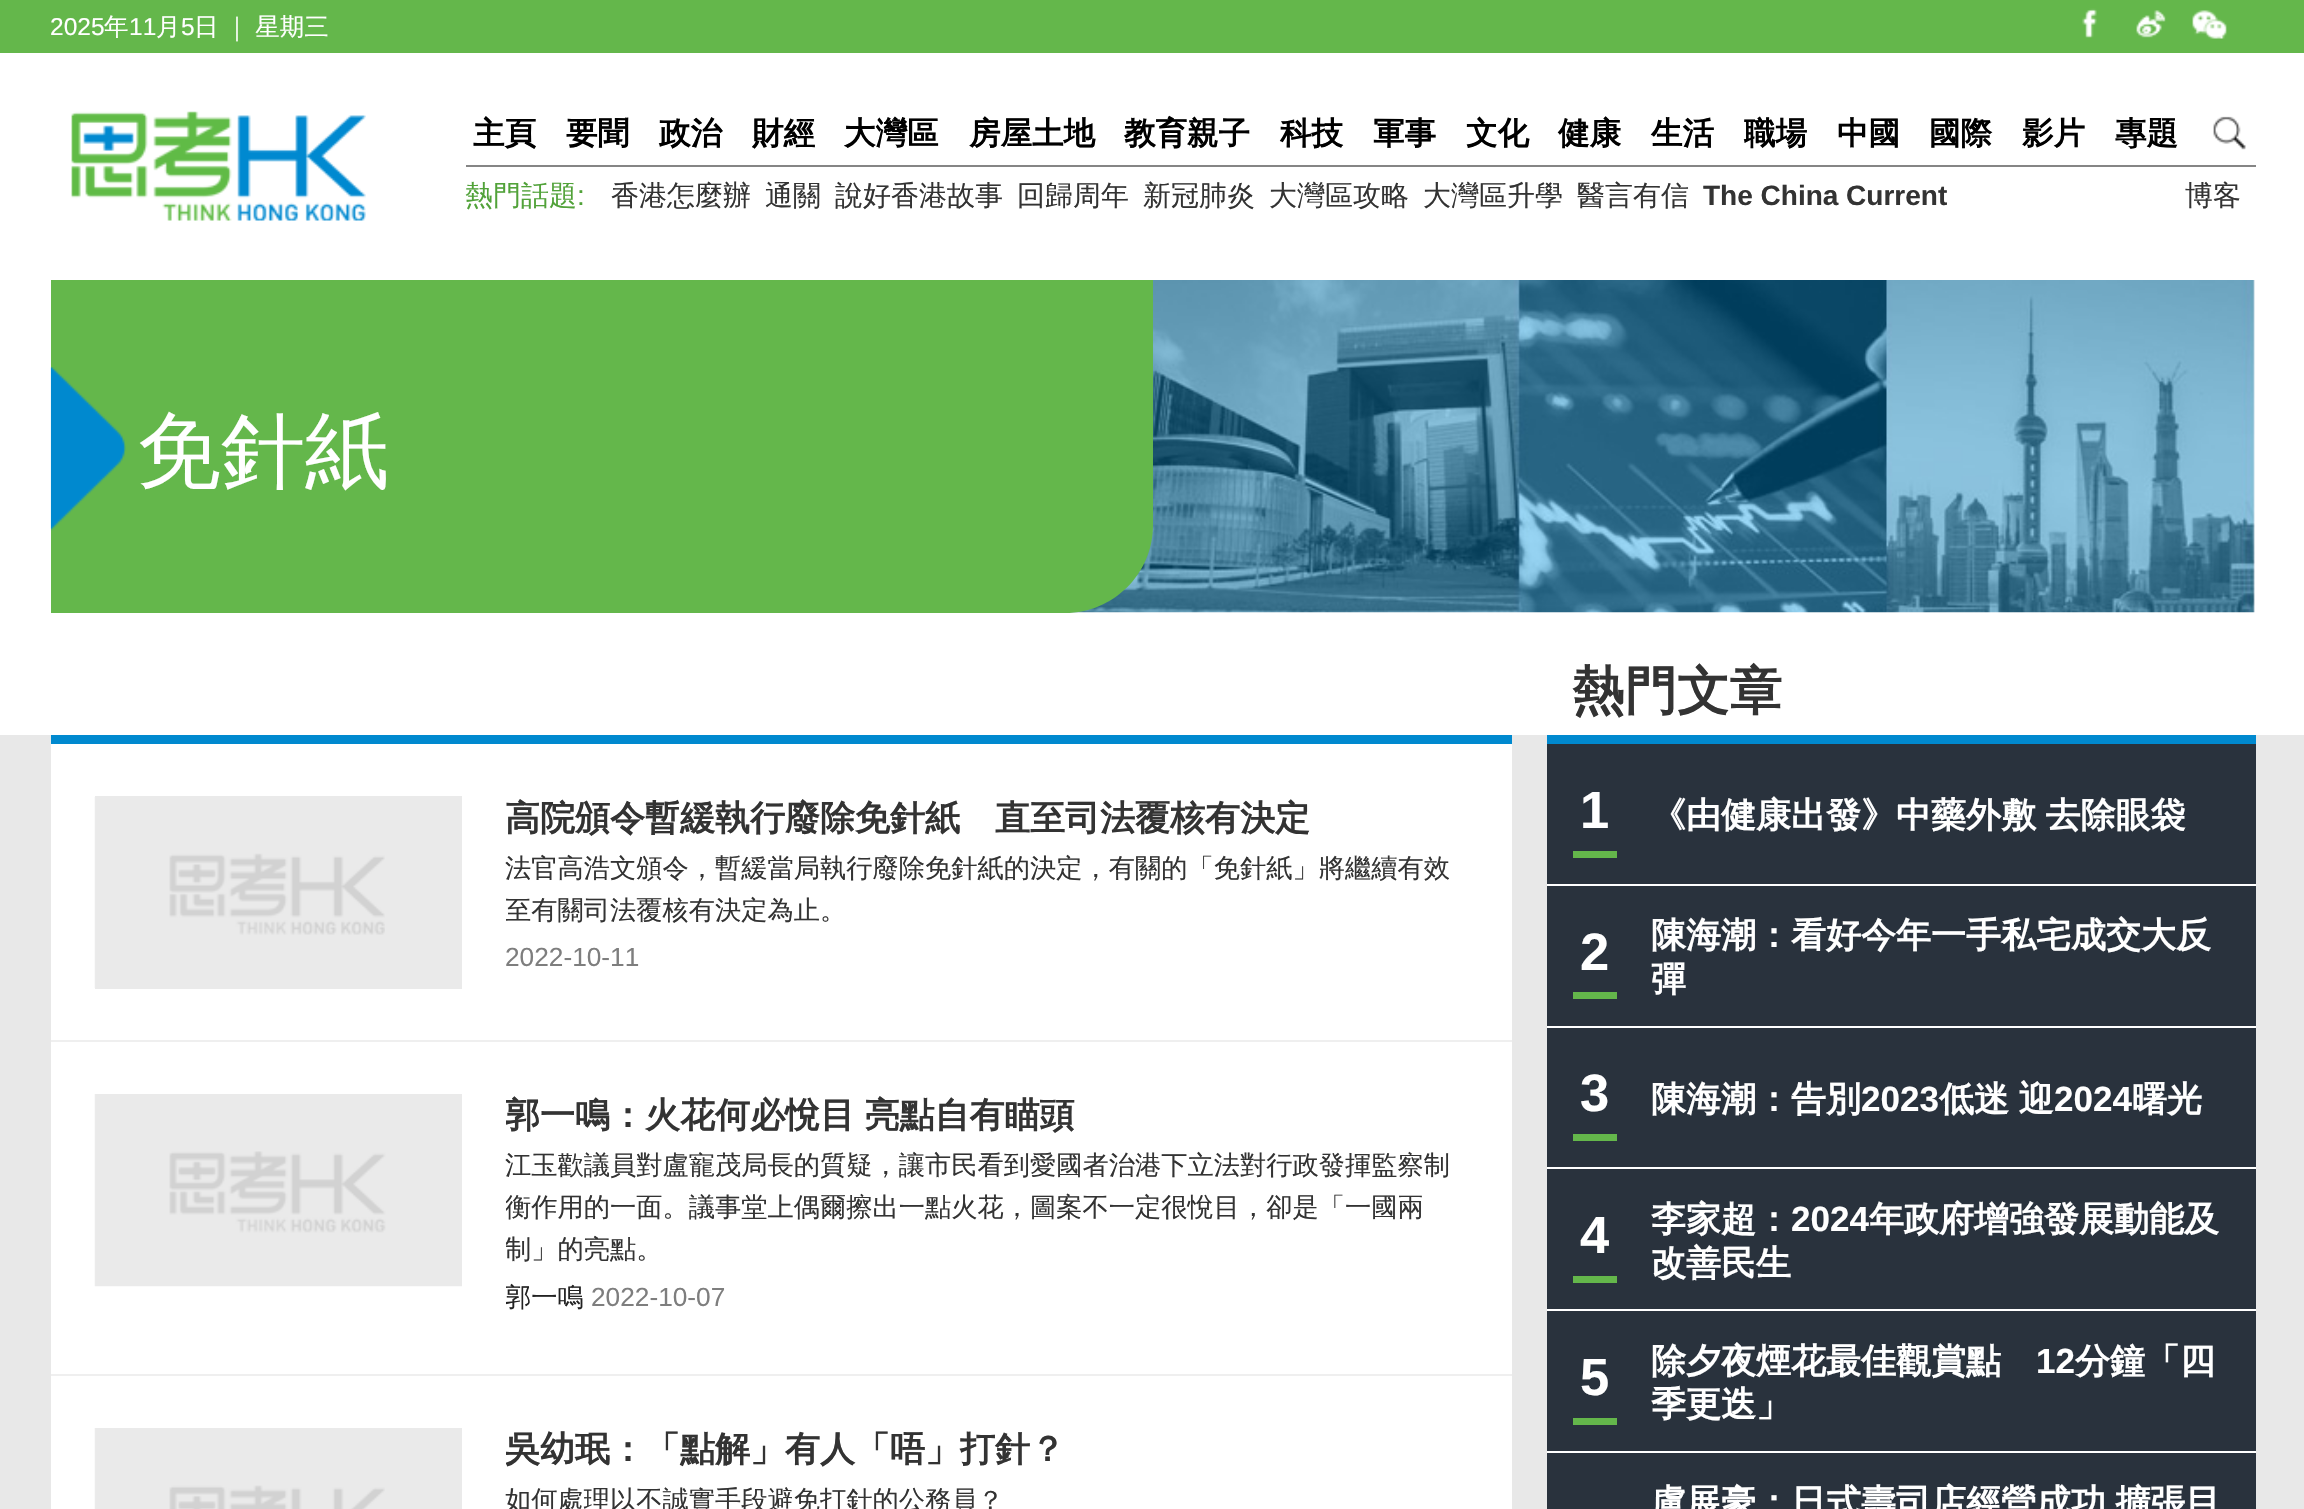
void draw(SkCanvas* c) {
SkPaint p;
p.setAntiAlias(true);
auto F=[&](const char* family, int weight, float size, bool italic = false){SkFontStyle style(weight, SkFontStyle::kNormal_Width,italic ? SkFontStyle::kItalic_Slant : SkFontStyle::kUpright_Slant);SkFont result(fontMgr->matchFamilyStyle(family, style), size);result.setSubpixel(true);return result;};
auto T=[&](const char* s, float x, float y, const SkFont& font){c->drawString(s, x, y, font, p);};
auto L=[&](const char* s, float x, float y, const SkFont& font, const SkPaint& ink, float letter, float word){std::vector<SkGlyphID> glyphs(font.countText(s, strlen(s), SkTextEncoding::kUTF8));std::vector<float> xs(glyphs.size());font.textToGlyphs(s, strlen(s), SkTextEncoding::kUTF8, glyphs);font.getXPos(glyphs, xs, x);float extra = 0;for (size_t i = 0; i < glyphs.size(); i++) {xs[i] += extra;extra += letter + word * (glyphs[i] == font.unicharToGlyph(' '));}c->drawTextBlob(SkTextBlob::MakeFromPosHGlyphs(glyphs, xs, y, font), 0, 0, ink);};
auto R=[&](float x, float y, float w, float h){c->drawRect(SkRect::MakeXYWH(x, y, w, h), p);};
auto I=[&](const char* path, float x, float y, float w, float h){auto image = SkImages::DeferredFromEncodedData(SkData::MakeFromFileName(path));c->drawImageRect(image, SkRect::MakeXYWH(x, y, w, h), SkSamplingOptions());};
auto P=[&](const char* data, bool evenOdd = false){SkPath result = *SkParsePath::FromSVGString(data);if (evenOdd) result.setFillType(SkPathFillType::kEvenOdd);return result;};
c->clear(0xffffffff);
p.setColor(0xff64b74b);
R(0,0,2304,53);
auto f1 = F("Liberation Sans",400,24.5);
p.setColor(0xffffffff);
T("2025",50,35,f1);
auto f2 = F("WenQuanYi Zen Hei",500,24.5);
T("年",104,35,f2);
T("11",129,35,f1);
T("月",156,35,f2);
T("5",181,35,f1);
L("日 ｜ 星期三",194,35,f2,p,0,-1);
I("1.png",2082,8,15,30);
I("2.png",2136,10,30,28);
I("3.png",2192,10,35,29);
I("4.png",71,111,295,110);
p.setColor(0xff858585);
R(466,165,1790,2);
auto f3 = F("WenQuanYi Zen Hei",700,31.5);
p.setColor(0xff000000);
T("主頁",473,144,f3);
T("要聞",566,144,f3);
T("政治",659,144,f3);
T("財經",752,144,f3);
T("大灣區",844,144,f3);
T("房屋土地",969,144,f3);
T("教育親子",1124,144,f3);
T("科技",1280,144,f3);
T("軍事",1373,144,f3);
T("文化",1466,144,f3);
T("健康",1558,144,f3);
T("生活",1651,144,f3);
T("職場",1744,144,f3);
T("中國",1837,144,f3);
T("國際",1929,144,f3);
T("影片",2022,144,f3);
T("專題",2115,144,f3);
I("5.png",2213,116,33,34);
auto f4 = F("WenQuanYi Zen Hei",500,28);
p.setColor(0xff51a239);
T("熱門話題",465,205,f4);
auto f5 = F("Liberation Sans",400,28);
T(":",577,205,f5);
p.setColor(0xff333333);
T("香港怎麼辦",611,205,f4);
T("通關",765,205,f4);
T("說好香港故事",835,205,f4);
T("回歸周年",1017,205,f4);
T("新冠肺炎",1143,205,f4);
T("大灣區攻略",1269,205,f4);
T("大灣區升學",1423,205,f4);
T("醫言有信",1577,205,f4);
auto f6 = F("Liberation Sans",700,28);
T("The China Current",1703,205,f6);
T("博客",2185,205,f4);
I("7.png",1066,280,1189,333);
p.setColor(0xff64b74b);
c->drawPath(P("M51 280h1102v245c0 48.5-39.5 88-88 88h-1014z"),p);
I("6.png",50,367,76,164);
auto f7 = F("WenQuanYi Zen Hei",500,84);
p.setColor(0xffffffff);
T("免針紙",137,480,f7);
p.setColor(0xffe8e8e8);
R(0,735,2304,774);
p.setColor(0xffffffff);
R(51,744,1461,765);
p.setColor(0xff0089cf);
R(51,735,1461,9);
p.setColor(0xffeaeaea);
R(95,796,367,193);
I("8.png",94,797,291,191);
auto f8 = F("WenQuanYi Zen Hei",700,35);
p.setColor(0xff333333);
T("高院頒令暫緩執行廢除免針紙　直至司法覆核有決定",505,830,f8);
auto f9 = F("WenQuanYi Zen Hei",500,26.25);
T("法官高浩文頒令，暫緩當局執行廢除免針紙的決定，有關的「免針紙」將繼續有效",505,877,f9);
c->save();
c->clipRect(SkRect::MakeXYWH(506,796,954,188));
T("至有關司法覆核有決定為止。",505,919,f9);
c->restore();
auto f10 = F("Liberation Sans",400,26.25);
p.setColor(0xff7e7e7e);
T("2022-10-11",505,966,f10);
p.setColor(0xffefefef);
R(51,1040,1461,2);
I("9.png",94,1094,368,193);
c->save();
c->clipRect(SkRect::MakeXYWH(506,1094,954,229));
p.setColor(0xff333333);
L("郭一鳴：火花何必悅目 亮點自有瞄頭",505,1127,f8,p,0,-1);
c->restore();
T("江玉歡議員對盧寵茂局長的質疑，讓市民看到愛國者治港下立法對行政發揮監察制",505,1174,f9);
c->save();
c->clipRect(SkRect::MakeXYWH(506,1094,954,229));
T("衡作用的一面。議事堂上偶爾擦出一點火花，圖案不一定很悅目，卻是「一國兩",505,1216,f9);
T("制」的亮點。",505,1258,f9);
p.setColor(0xff222222);
T("郭一鳴",505,1306,f9);
c->restore();
p.setColor(0xff7e7e7e);
T("2022-10-07",591,1306,f10);
p.setColor(0xffefefef);
R(51,1374,1461,2);
p.setColor(0xffeaeaea);
R(385,1428,77,81);
I("10.png",94,1428,291,81);
c->save();
c->clipRect(SkRect::MakeXYWH(506,1428,954,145));
p.setColor(0xff333333);
T("吳幼珉：「點解」有人「唔」打針？",505,1461,f8);
c->restore();
T("如何處理以不誠實手段避免打針的公務員？",505,1509,f9);
auto f11 = F("WenQuanYi Zen Hei",700,52.5);
T("熱門文章",1572,709,f11);
p.setColor(0xff29323d);
R(1547,744,709,765);
p.setColor(0xff0089cf);
R(1547,735,709,9);
p.setColor(0xffffffff);
R(1547,884,709,2);
p.setColor(0xff64b74b);
R(1573,851,44,7);
auto f12 = F("Liberation Sans",700,52.5);
p.setColor(0xffffffff);
L("1",1580,828,f12,p,-9,0);
L("《由健康出發》中藥外敷 去除眼袋",1651,827,f8,p,0,-1);
R(1547,1026,709,2);
p.setColor(0xff64b74b);
R(1573,992,44,7);
p.setColor(0xffffffff);
L("2",1580,970,f12,p,-9,0);
T("陳海潮：看好今年一手私宅成交大反",1651,947,f8);
T("彈",1651,991,f8);
R(1547,1167,709,2);
p.setColor(0xff64b74b);
R(1573,1134,44,7);
p.setColor(0xffffffff);
L("3",1580,1111,f12,p,-9,0);
T("陳海潮：告別",1651,1111,f8);
auto f13 = F("Liberation Sans",700,35);
T("2023",1861,1111,f13);
L("低迷 迎",1939,1111,f8,p,0,-1);
T("2024",2054,1111,f13);
T("曙光",2132,1111,f8);
R(1547,1309,709,2);
p.setColor(0xff64b74b);
R(1573,1276,44,7);
p.setColor(0xffffffff);
L("4",1580,1253,f12,p,-9,0);
T("李家超：",1651,1231,f8);
T("2024",1791,1231,f13);
T("年政府增強發展動能及",1869,1231,f8);
T("改善民生",1651,1275,f8);
R(1547,1451,709,2);
p.setColor(0xff64b74b);
R(1573,1418,44,7);
p.setColor(0xffffffff);
L("5",1580,1395,f12,p,-9,0);
T("除夕夜煙花最佳觀賞點",1651,1373,f8);
T("12",2036,1373,f13);
T("分鐘「四",2075,1373,f8);
T("季更迭」",1651,1416,f8);
L("盧展豪：日式壽司店經營成功 擴張目",1651,1514,f8,p,0,-1);
}
